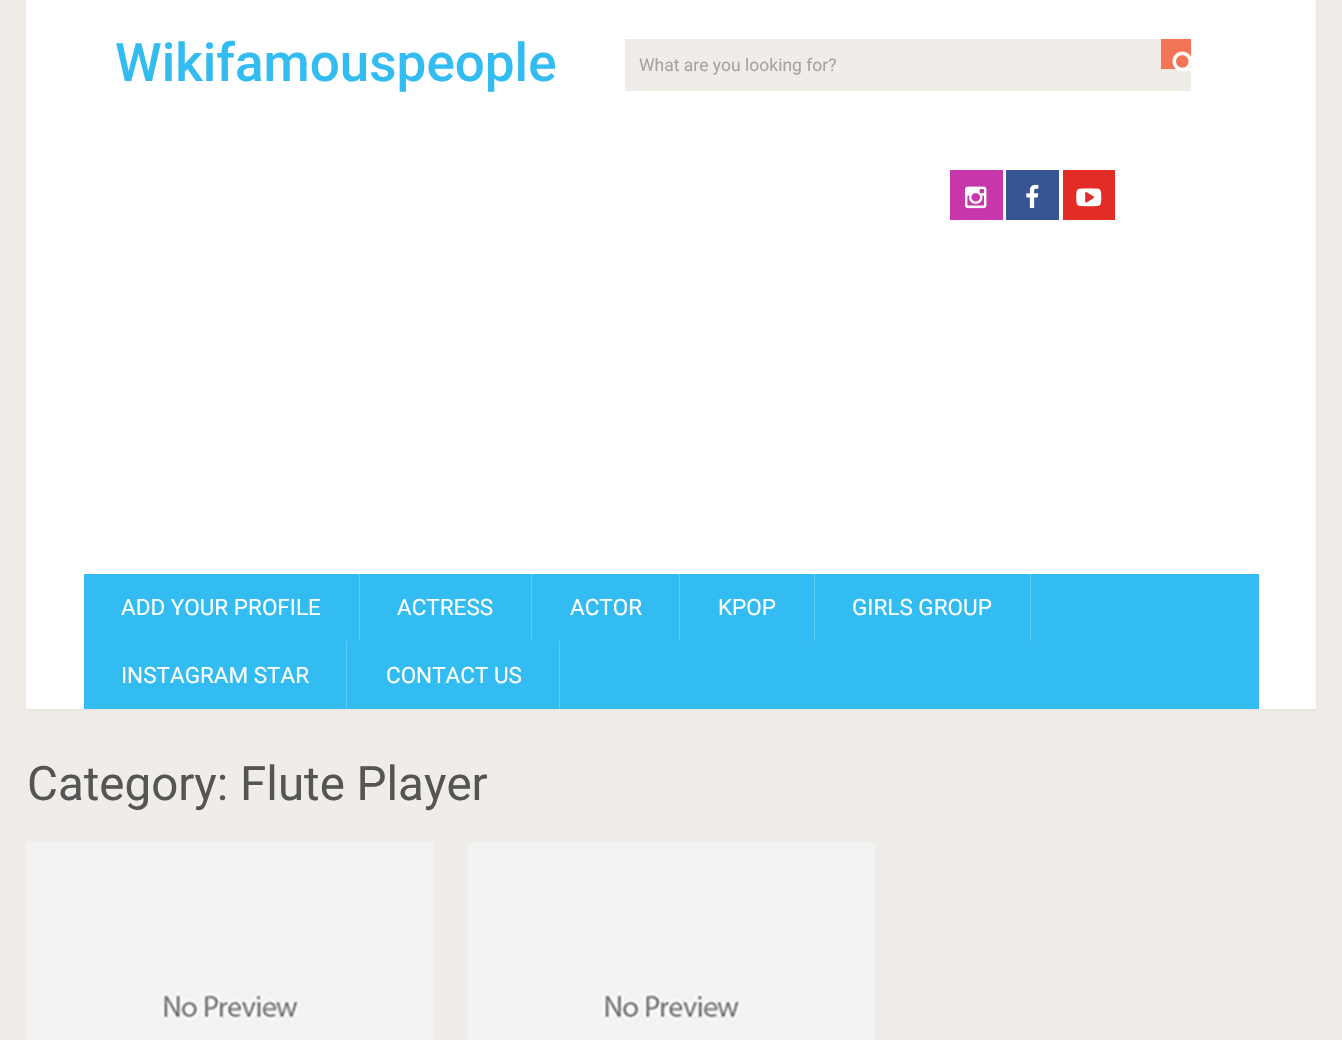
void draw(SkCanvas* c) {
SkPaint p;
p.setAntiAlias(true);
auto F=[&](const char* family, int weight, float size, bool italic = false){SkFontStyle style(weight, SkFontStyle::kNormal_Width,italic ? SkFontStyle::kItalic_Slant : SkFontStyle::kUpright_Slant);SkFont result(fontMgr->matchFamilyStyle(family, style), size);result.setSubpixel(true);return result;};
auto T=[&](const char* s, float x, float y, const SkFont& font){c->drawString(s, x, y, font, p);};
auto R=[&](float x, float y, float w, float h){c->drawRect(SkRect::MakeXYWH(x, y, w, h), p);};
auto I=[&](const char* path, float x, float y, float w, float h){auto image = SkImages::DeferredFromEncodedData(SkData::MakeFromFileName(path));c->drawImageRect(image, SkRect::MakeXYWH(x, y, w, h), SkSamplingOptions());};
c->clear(0xfff0ede9);
p.setColor(0x0d000000);
p.setMaskFilter(SkMaskFilter::MakeBlur(kNormal_SkBlurStyle, 1));
c->drawRect(SkRect::MakeXYWH(26,1,1290,709),p);
p.setMaskFilter(nullptr);
p.setColor(0xffffffff);
R(26,0,1290,709);
auto f1 = F("Roboto",500,53);
p.setColor(0xff33bcf2);
T("Wikifamouspeople",115,81,f1);
p.setColor(0xfff0ede9);
c->drawRect(SkRect::MakeXYWH(625.5,39.5,565,51),p);
p.setStroke(true);
p.setStrokeWidth(1);
p.setColor(0xffefebe7);
c->drawRect(SkRect::MakeXYWH(625.5,39.5,565,51),p);
auto f2 = F("Roboto",400,17.5);
p.setStroke(false);
p.setColor(0xffa4a4a4);
T("What are you looking for?",639,71,f2);
p.setColor(0xfff47555);
R(1161,39,30,30);
I("1.png",1172,51,19,22);
p.setColor(0xffc736ab);
R(950,170,53,50);
I("2.png",965,186,22,23);
p.setColor(0xff375593);
R(1006,170,53,50);
I("3.png",1026,184,13,25);
p.setColor(0xffe32c26);
R(1063,170,52,50);
I("4.png",1076,188,26,19);
p.setColor(0xff33bcf2);
R(84,574,1175,135);
p.setColor(0xff60cbf5);
R(359,574,1,67);
auto f3 = F("Roboto",400,22.5);
p.setColor(0xffffffff);
T("ADD YOUR PROFILE",121,615,f3);
p.setColor(0xff60cbf5);
R(531,574,1,67);
p.setColor(0xffffffff);
T("ACTRESS",397,615,f3);
p.setColor(0xff60cbf5);
R(679,574,1,67);
p.setColor(0xffffffff);
T("ACTOR",570,615,f3);
p.setColor(0xff60cbf5);
R(814,574,1,67);
p.setColor(0xffffffff);
T("KPOP",718,615,f3);
p.setColor(0xff60cbf5);
R(1030,574,1,67);
p.setColor(0xffffffff);
T("GIRLS GROUP",852,615,f3);
p.setColor(0xff60cbf5);
R(346,641,1,68);
p.setColor(0xffffffff);
T("INSTAGRAM STAR",121,683,f3);
p.setColor(0xff60cbf5);
R(559,641,1,68);
p.setColor(0xffffffff);
T("CONTACT US",386,683,f3);
auto f4 = F("Roboto",400,47.5);
p.setColor(0xff555555);
T("Category: Flute Player",27,800,f4);
I("5.png",26,842,408,198);
I("6.png",467,842,408,198);
}
